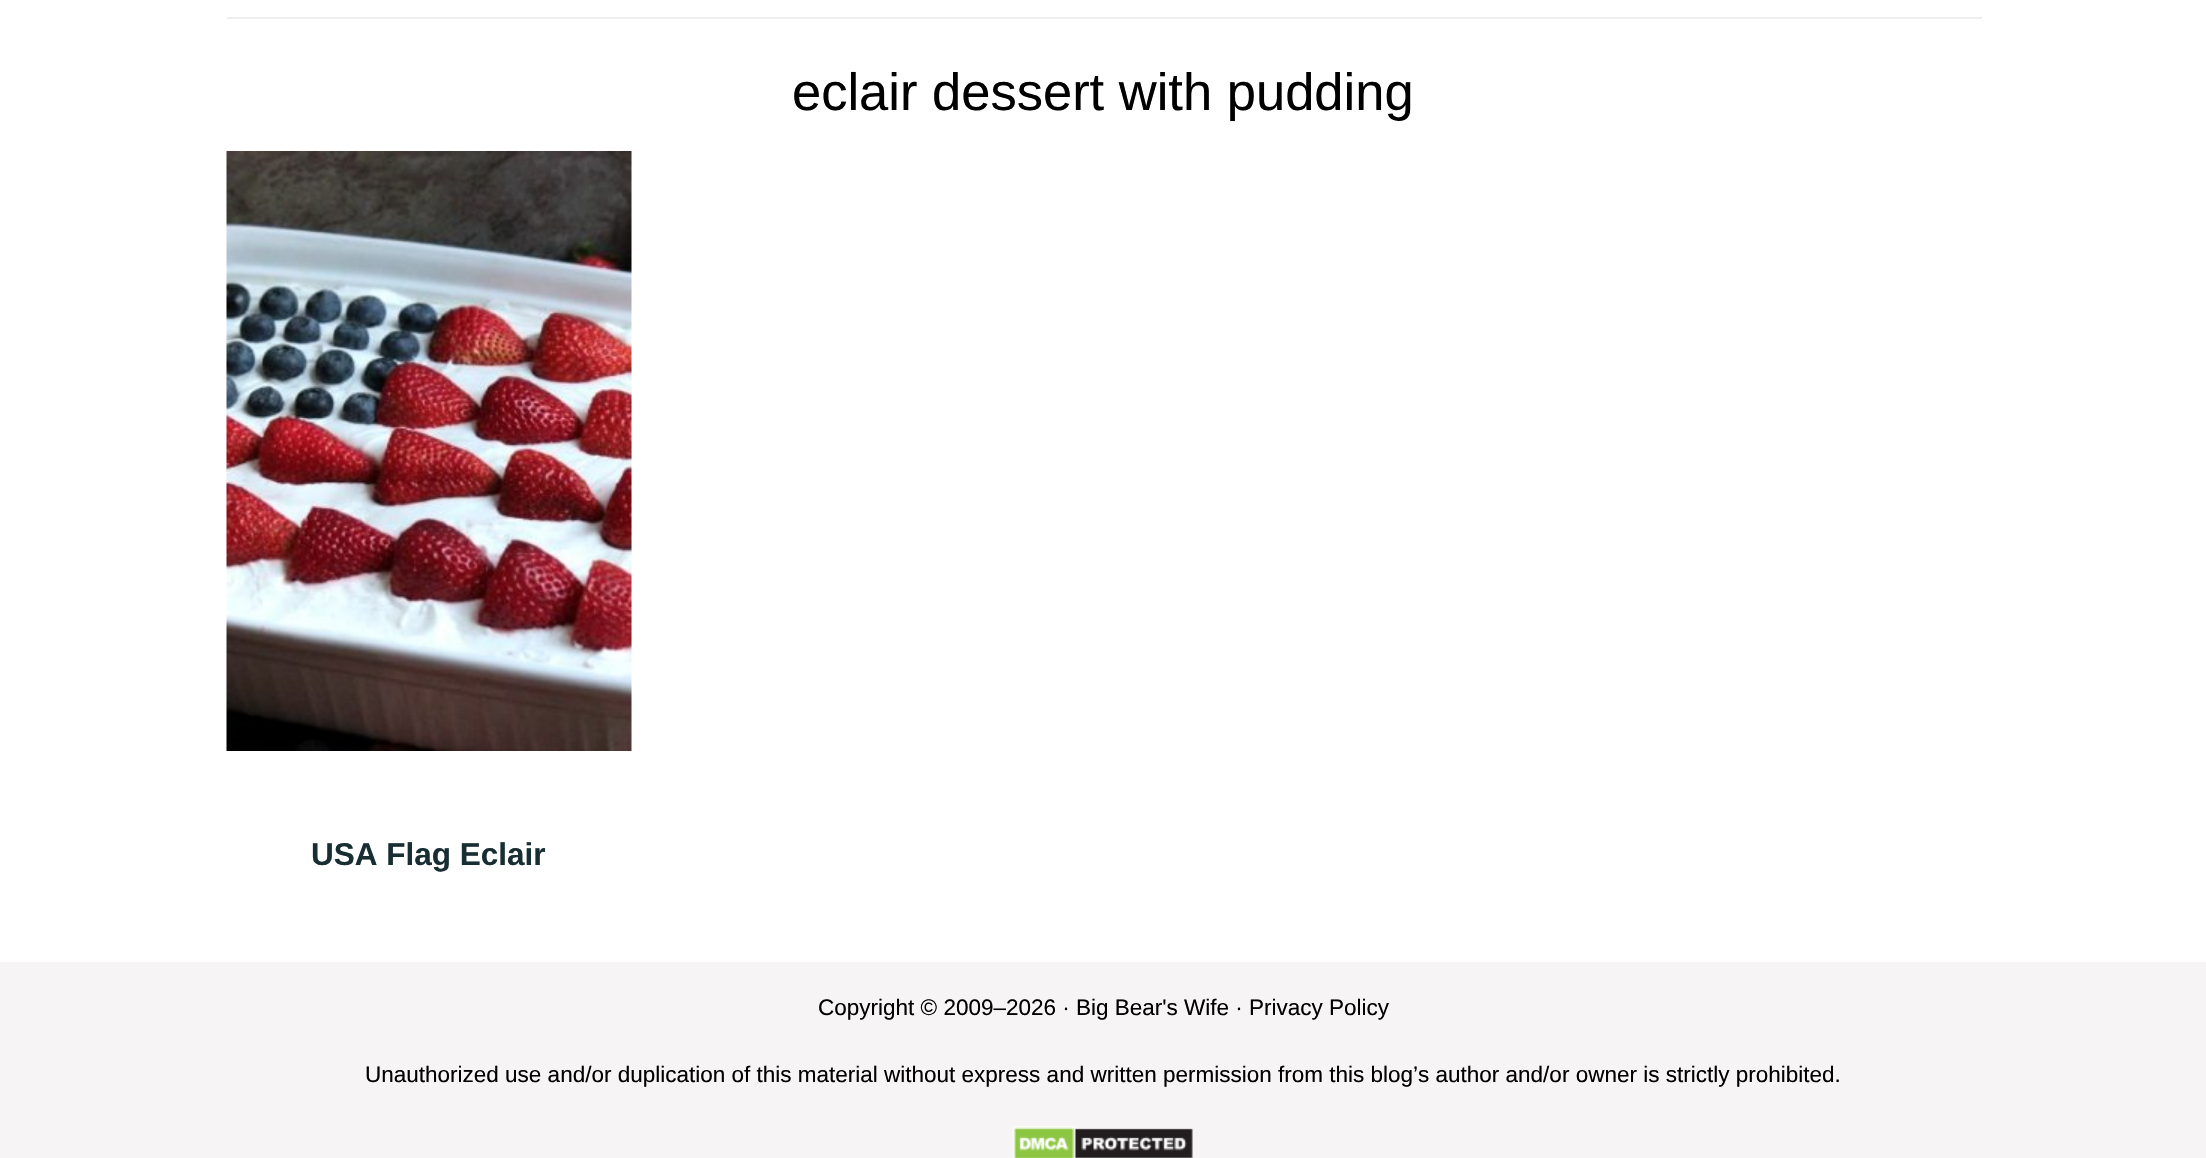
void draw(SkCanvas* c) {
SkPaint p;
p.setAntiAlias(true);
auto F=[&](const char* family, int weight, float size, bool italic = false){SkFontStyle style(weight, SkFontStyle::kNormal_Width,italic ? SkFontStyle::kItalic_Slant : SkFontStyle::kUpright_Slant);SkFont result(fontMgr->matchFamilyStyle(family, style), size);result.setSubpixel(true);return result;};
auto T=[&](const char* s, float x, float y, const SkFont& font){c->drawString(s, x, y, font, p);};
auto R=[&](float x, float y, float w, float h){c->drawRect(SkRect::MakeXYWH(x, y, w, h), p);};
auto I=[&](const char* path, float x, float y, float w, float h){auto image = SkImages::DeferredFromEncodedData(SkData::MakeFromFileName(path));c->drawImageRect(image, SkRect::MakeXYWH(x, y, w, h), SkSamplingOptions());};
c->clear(0xffffffff);
p.setColor(0xffefeded);
R(227,17,1755,2);
auto f1 = F("Liberation Sans",400,52.5);
p.setColor(0xff000000);
T("eclair dessert with pudding",792,110,f1);
I("1.png",226,151,406,600);
auto f2 = F("Liberation Sans",700,31.5);
p.setColor(0xff182e33);
T("USA Flag Eclair",311,865,f2);
p.setColor(0xfff6f4f4);
R(0,962,2206,196);
auto f3 = F("Liberation Sans",400,22.5);
p.setColor(0xff000000);
T("Copyright © 2009–2026 · Big Bear's Wife · Privacy Policy",818,1015,f3);
T("Unauthorized use and/or duplication of this material without express and written permission from this blog’s author and/or owner is strictly prohibited.",365,1082,f3);
I("2.png",1012,1126,181,32);
}
